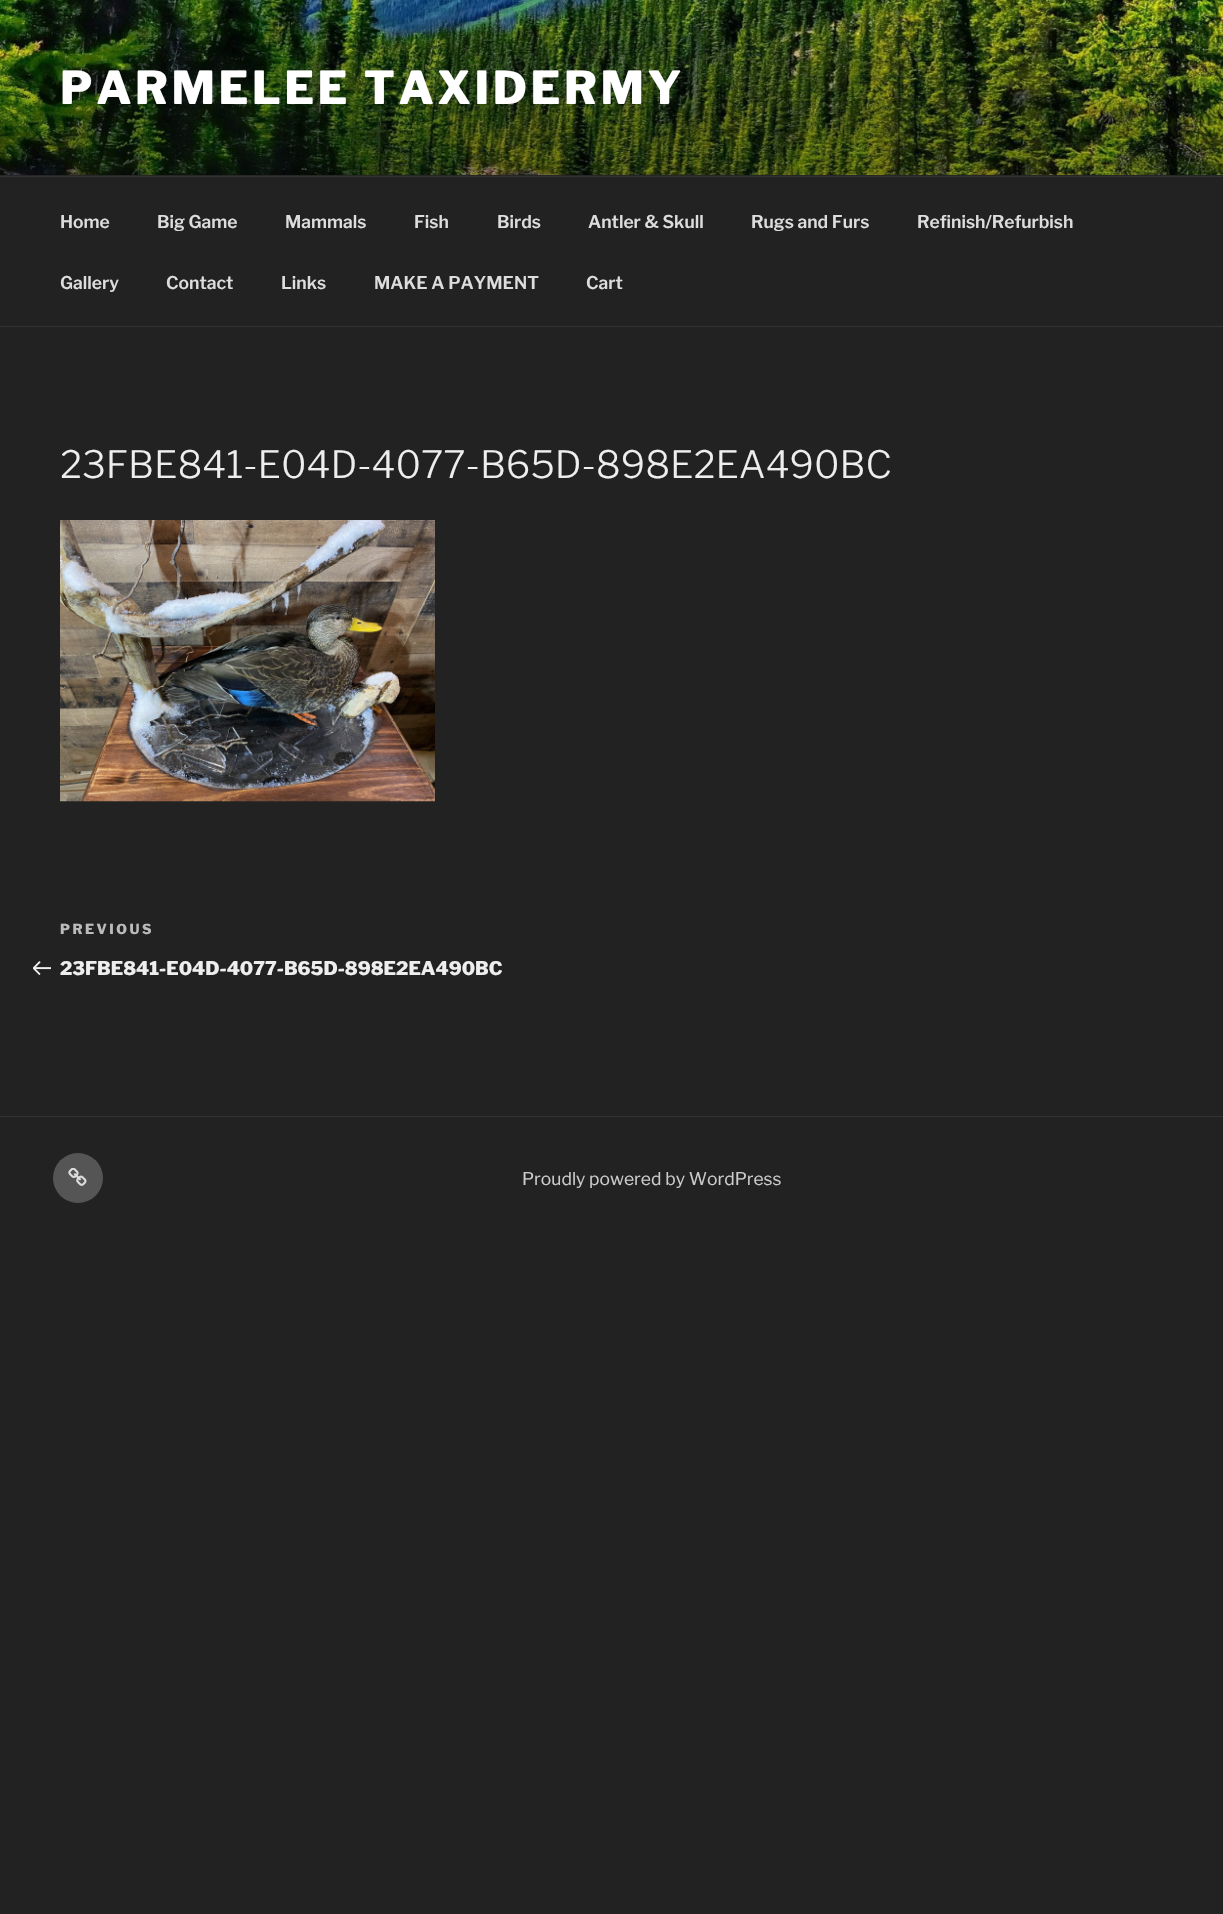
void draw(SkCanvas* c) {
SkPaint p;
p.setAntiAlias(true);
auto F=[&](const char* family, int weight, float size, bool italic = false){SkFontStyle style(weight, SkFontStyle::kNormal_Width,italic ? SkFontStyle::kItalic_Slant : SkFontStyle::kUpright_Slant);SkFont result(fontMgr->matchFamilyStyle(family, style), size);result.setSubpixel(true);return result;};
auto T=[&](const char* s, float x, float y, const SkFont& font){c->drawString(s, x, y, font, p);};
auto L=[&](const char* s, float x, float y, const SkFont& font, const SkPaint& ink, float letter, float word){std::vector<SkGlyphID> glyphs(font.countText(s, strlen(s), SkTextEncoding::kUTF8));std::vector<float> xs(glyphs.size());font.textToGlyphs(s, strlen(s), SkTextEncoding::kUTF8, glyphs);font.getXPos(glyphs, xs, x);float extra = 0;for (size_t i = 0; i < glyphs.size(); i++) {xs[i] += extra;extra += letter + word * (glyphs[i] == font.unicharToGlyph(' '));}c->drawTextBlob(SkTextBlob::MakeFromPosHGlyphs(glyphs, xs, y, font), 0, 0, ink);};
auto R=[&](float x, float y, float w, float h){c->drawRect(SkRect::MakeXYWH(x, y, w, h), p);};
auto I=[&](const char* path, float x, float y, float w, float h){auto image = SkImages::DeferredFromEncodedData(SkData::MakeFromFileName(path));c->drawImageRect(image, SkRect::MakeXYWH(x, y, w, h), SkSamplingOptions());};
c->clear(0xff222222);
p.setColor(0xff262626);
R(0,175,1223,1);
I("1.png",0,0,1223,175);
auto f1 = F("Libre Franklin",100,45);
p.setColor(0xffffffff);
L("PARMELEE TAXIDERMY",60,104,f1,p,3.6,0);
p.setColor(0xff333333);
R(0,176,1223,1);
R(0,326,1223,1);
auto f2 = F("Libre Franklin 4",100,17.5);
p.setColor(0xffdddddd);
T("Home",60,228,f2);
T("Big Game",157,228,f2);
T("Mammals",285,228,f2);
T("Fish",414,228,f2);
T("Birds",497,228,f2);
T("Antler & Skull",588,228,f2);
T("Rugs and Furs",751,228,f2);
T("Refinish/Refurbish",917,228,f2);
T("Gallery",60,289,f2);
T("Contact",166,289,f2);
T("Links",281,289,f2);
T("MAKE A PAYMENT",374,289,f2);
T("Cart",586,289,f2);
auto f3 = F("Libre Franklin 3",100,37.5);
p.setColor(0xffeeeeee);
T("23FBE841-E04D-4077-B65D-898E2EA490BC",60,478,f3);
I("2.png",60,520,375,282);
auto f4 = F("Libre Franklin",100,13.75);
p.setColor(0xffbbbbbb);
L("PREVIOUS",60,934,f4,p,2.5,0);
I("3.png",33,961,18,14);
auto f5 = F("Libre Franklin",100,18.75);
p.setColor(0xffeeeeee);
T("23FBE841-E04D-4077-B65D-898E2EA490BC",60,975,f5);
p.setColor(0xff333333);
R(0,1116,1223,1);
p.setColor(0xff555555);
c->drawCircle(78,1178,25,p);
I("4.png",68,1168,19,18);
auto f6 = F("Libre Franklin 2",100,17.5);
p.setColor(0xffcccccc);
T("Proudly powered by WordPress",522,1185,f6);
}
